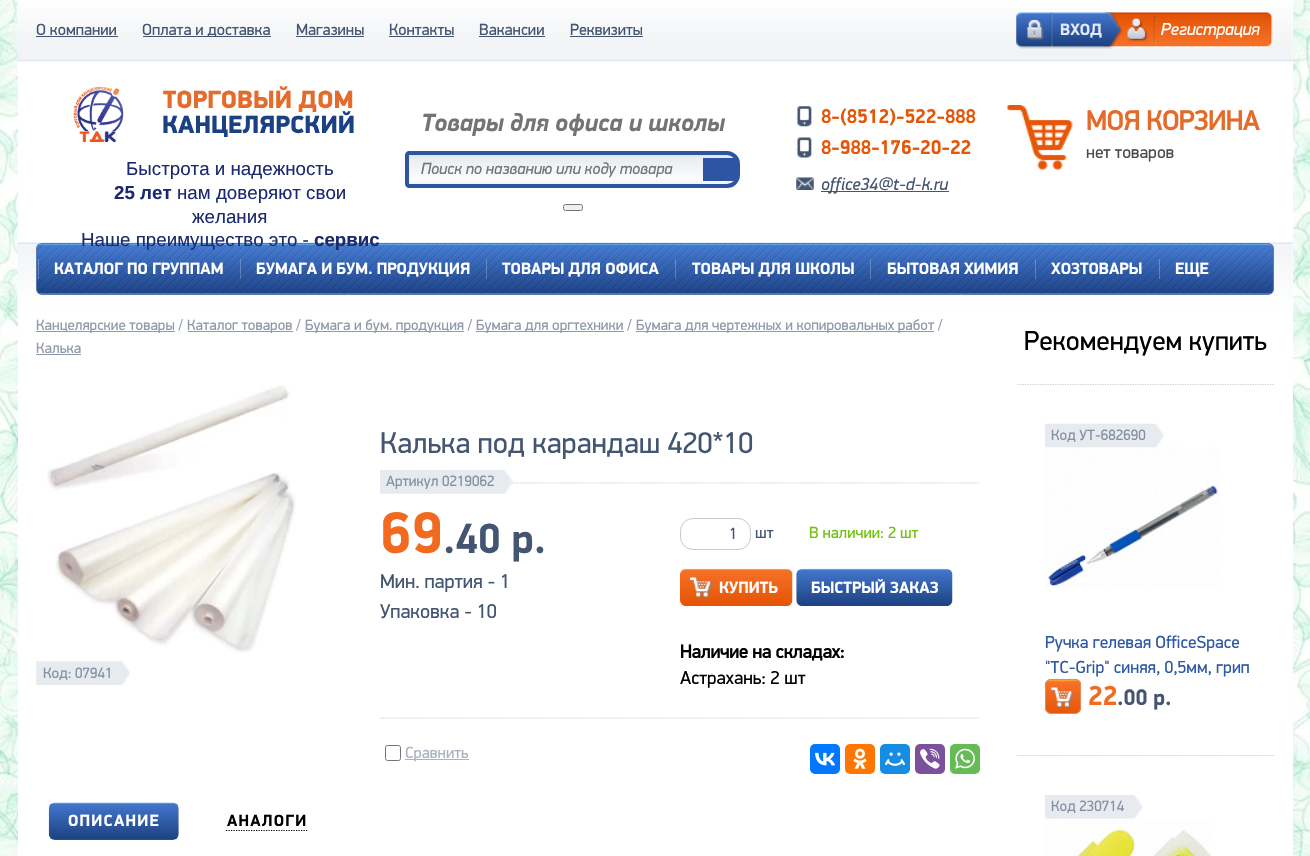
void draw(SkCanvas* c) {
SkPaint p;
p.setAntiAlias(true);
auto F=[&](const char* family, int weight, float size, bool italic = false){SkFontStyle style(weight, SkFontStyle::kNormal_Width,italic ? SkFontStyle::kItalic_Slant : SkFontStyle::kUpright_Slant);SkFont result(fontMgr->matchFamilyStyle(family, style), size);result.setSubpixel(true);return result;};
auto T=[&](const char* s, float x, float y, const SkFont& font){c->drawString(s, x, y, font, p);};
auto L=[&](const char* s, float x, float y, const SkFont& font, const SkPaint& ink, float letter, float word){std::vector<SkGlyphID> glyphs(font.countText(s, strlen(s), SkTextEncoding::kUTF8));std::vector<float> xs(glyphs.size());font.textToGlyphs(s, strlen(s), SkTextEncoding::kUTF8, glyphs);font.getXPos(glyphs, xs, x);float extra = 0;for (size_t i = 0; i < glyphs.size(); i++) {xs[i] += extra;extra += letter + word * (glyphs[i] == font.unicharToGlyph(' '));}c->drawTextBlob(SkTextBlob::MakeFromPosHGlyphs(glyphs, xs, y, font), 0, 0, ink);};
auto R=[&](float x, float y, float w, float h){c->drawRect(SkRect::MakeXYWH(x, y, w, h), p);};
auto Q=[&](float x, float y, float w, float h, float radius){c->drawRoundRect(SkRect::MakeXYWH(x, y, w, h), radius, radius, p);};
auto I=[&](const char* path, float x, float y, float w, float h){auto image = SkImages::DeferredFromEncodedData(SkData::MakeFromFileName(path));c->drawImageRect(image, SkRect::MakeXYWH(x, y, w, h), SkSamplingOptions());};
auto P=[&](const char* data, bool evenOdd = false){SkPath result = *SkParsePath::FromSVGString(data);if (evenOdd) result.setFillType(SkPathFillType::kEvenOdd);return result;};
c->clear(0xffffffff);
I("1.png",0,0,1310,856);
p.setColor(0xffffffff);
R(18,0,1275,856);
I("2.png",17,0,1276,62);
auto f1 = F("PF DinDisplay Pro",400,16.25);
p.setColor(0xff445571);
T("О компании",36,35,f1);
R(36,36,82,1);
R(143,36,128,1);
T("Оплата и доставка",142,35,f1);
T("Магазины",296,35,f1);
R(296,36,68,1);
T("Контакты",389,35,f1);
R(389,36,65,1);
T("Вакансии",479,35,f1);
R(479,36,66,1);
T("Реквизиты",570,35,f1);
R(570,36,73,1);
I("4.png",1105,12,168,36);
I("3.png",1016,12,107,37);
auto f2 = F("PF DinDisplay Pro",700,16.25);
p.setColor(0xffe0e9f7);
T("ВХОД",1060,35,f2);
auto f3 = F("PF DinDisplay Pro",400,17.5,true);
p.setColor(0xffffffff);
T("Регистрация",1161,35,f3);
I("5.png",73,86,51,57);
auto f4 = F("PF DinDisplay Pro",900,25);
p.setColor(0xffe46b2a);
T("ТОРГОВЫЙ ДОМ",163,108,f4);
p.setColor(0xff1b4185);
T("КАНЦЕЛЯРСКИЙ",162,133,f4);
auto f5 = F("Liberation Sans",400,18.75);
p.setColor(0xff1b296f);
T("Быстрота и надежность",126,175,f5);
auto f6 = F("Liberation Sans",700,18.75);
T("25 лет",114,199,f6);
T("нам доверяют свои",177,199,f5);
T("желания",192,223,f5);
I("11.png",17,242,1276,79);
I("12.png",36,243,1238,51);
p.setStroke(true);
p.setStrokeWidth(1);
p.setColor(0xff5b79ae);
c->drawRoundRect(SkRect::MakeXYWH(36.5,243.5,1237,51),5.5,5.5,p);
p.setStroke(false);
p.setColor(0xff1b296f);
T("Наше преимущество это -",81,246,f5);
T("сервис",314,246,f6);
auto f7 = F("PF DinDisplay Pro",700,25,true);
p.setColor(0xff727477);
T("Товары для офиса и школы",421,131,f7);
I("6.png",409,155,331,29);
p.setStroke(true);
p.setStrokeWidth(4);
p.setColor(0xff2e55a2);
c->drawPath(P("M409 153h318c6 0 11 5 11 11v11c0 6-5 11-11 11h-318c-1 0-2-1-2-2v-29c0-1 1-2 2-2z"),p);
p.setStroke(false);
R(703,158,33,23);
auto f8 = F("PF DinDisplay Pro",400,16.25,true);
p.setColor(0xff727477);
T("Поиск по названию или коду товара",421,174,f8);
p.setColor(0xffefefef);
c->drawRoundRect(SkRect::MakeXYWH(563.5,204.5,19,6),2,2,p);
p.setStroke(true);
p.setStrokeWidth(1);
p.setColor(0xff767676);
c->drawRoundRect(SkRect::MakeXYWH(563.5,204.5,19,6),2,2,p);
I("7.png",796,106,17,21);
auto f9 = F("PF DinDisplay Pro",700,20);
p.setStroke(false);
p.setColor(0xffe65606);
T("8-(8512)-522-888",821,123,f9);
I("8.png",796,137,17,21);
T("8-988-176-20-22",821,154,f9);
I("9.png",796,177,18,13);
p.setColor(0xff445571);
R(821,191,128,1);
T("office34@t-d-k.ru",821,190,f3);
I("10.png",1007,105,66,65);
auto f10 = F("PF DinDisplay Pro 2",700,27.5);
p.setColor(0xffe46b2a);
T("МОЯ КОРЗИНА",1086,130,f10);
auto f11 = F("PF DinDisplay Pro",400,17.5);
p.setColor(0xff4b4b4b);
T("нет товаров",1086,158,f11);
p.setColor(0x3dffffff);
R(38,259,1,20);
p.setColor(0xffffffff);
T("КАТАЛОГ ПО ГРУППАМ",54,274,f2);
p.setColor(0x3dffffff);
R(240,259,1,20);
p.setColor(0xffffffff);
T("БУМАГА И БУМ. ПРОДУКЦИЯ",256,274,f2);
p.setColor(0x3dffffff);
R(486,259,1,20);
p.setColor(0xffffffff);
T("ТОВАРЫ ДЛЯ ОФИСА",502,274,f2);
p.setColor(0x3dffffff);
R(675,259,1,20);
p.setColor(0xffffffff);
T("ТОВАРЫ ДЛЯ ШКОЛЫ",692,274,f2);
p.setColor(0x3dffffff);
R(870,259,1,20);
p.setColor(0xffffffff);
T("БЫТОВАЯ ХИМИЯ",887,274,f2);
p.setColor(0x3dffffff);
R(1035,259,1,20);
p.setColor(0xffffffff);
T("ХОЗТОВАРЫ",1051,274,f2);
p.setColor(0x3dffffff);
R(1159,259,1,20);
p.setColor(0xffffffff);
T("ЕЩЕ",1175,274,f2);
p.setColor(0xff8f99aa);
R(36,331,139,1);
auto f12 = F("PF DinDisplay Pro",400,15);
T("Канцелярские товары /",36,330,f12);
R(188,331,105,1);
T("Каталог товаров /",187,330,f12);
R(305,331,159,1);
T("Бумага и бум. продукция /",305,330,f12);
R(476,331,148,1);
T("Бумага для оргтехники /",476,330,f12);
R(636,331,298,1);
T("Бумага для чертежных и копировальных работ /",636,330,f12);
T("Калька",36,353,f12);
R(36,354,45,1);
I("13.png",47,385,249,268);
auto f13 = F("PF DinDisplay Pro",400,30);
p.setColor(0xff445571);
T("Калька под карандаш 420*10",380,453,f13);
p.setStroke(true);
p.setStrokeWidth(1.2);
p.setColor(0xffc7ccd4);
p.setPathEffect(SkDashPathEffect::Make({{1.25f,1.25f}}, 0));
c->drawPath(P("M380 483h600"),p);
p.setPathEffect(nullptr);
I("14.png",380,470,133,24);
p.setStroke(false);
p.setColor(0xff8591a3);
T("Артикул 0219062",386,486,f12);
p.setStroke(true);
p.setColor(0xffc7ccd4);
p.setPathEffect(SkDashPathEffect::Make({{1.25f,1.25f}}, 0));
c->drawPath(P("M380 718h600"),p);
p.setPathEffect(nullptr);
auto f14 = F("PF DinDisplay Pro",700,59);
p.setStroke(false);
p.setColor(0xfff26a20);
T("69",380,553,f14);
auto f15 = F("PF DinDisplay Pro",700,42.5);
p.setColor(0xff445571);
T(".40 р.",443,553,f15);
auto f16 = F("PF DinDisplay Pro",400,20);
T("Мин. партия - 1",380,588,f16);
T("Упаковка - 10",380,618,f16);
p.setStroke(true);
p.setStrokeWidth(1);
p.setColor(0xffcac8c8);
c->drawRoundRect(SkRect::MakeXYWH(680.5,518.5,70,31),12.5,12.5,p);
p.setStroke(false);
p.setColor(0xff445571);
T("1",729,539,f1);
T("шт",755,538,f1);
p.setColor(0xff71c211);
T("В наличии: 2 шт",809,538,f1);
I("16.png",680,568,113,38);
I("15.png",690,577,23,22);
p.setColor(0xffffffff);
T("КУПИТЬ",719,593,f2);
I("17.png",796,568,157,38);
T("БЫСТРЫЙ ЗАКАЗ",811,593,f2);
auto f17 = F("PF DinDisplay Pro 2",700,18.75);
p.setColor(0xff000000);
T("Наличие на складах:",680,658,f17);
auto f18 = F("PF DinDisplay Pro",400,18.75);
T("Астрахань: 2 шт",680,684,f18);
p.setStroke(true);
p.setColor(0xff767676);
c->drawRoundRect(SkRect::MakeXYWH(385.5,745.5,15,15),2,2,p);
p.setStroke(false);
p.setColor(0xffabb2bf);
R(405,759,64,1);
T("Сравнить",405,758,f1);
p.setColor(0xff0077ff);
Q(810,744,30,30,5);
I("18.png",815,752,20,14);
p.setColor(0xffff7700);
Q(845,744,30,30,5);
I("19.png",853,748,14,21);
p.setColor(0xff168de2);
Q(880,744,30,30,5);
I("20.png",885,752,20,14);
p.setColor(0xff7b519d);
Q(915,744,30,30,5);
I("21.png",920,748,20,21);
p.setColor(0xff65bc54);
Q(950,744,30,30,5);
I("22.png",955,748,20,21);
I("23.png",36,661,94,24);
p.setColor(0xff8591a3);
T("Код: 07941",43,678,f12);
I("24.png",48,802,131,38);
p.setColor(0xffffffff);
L("ОПИСАНИЕ",68,826,f2,p,1.25,0);
p.setColor(0xff000000);
L("АНАЛОГИ",227,826,f2,p,1.25,0);
p.setStroke(true);
p.setStrokeWidth(1.2);
p.setPathEffect(SkDashPathEffect::Make({{1.25f,1.25f}}, 0));
c->drawPath(P("M226 830.5h81.5"),p);
p.setPathEffect(nullptr);
auto f19 = F("PF DinDisplay Pro",400,27.5);
p.setStroke(false);
T("Рекомендуем купить",1024,350,f19);
p.setStroke(true);
p.setColor(0xffc7ccd4);
p.setPathEffect(SkDashPathEffect::Make({{1.25f,1.25f}}, 0));
c->drawPath(P("M1017.5 384.5h256.5"),p);
p.setPathEffect(nullptr);
I("25.png",1045,423,119,25);
p.setStroke(false);
p.setColor(0xff8591a3);
T("Код УТ-682690",1051,440,f12);
I("26.png",1045,447,175,140);
p.setColor(0xff2e59a3);
T("Ручка гелевая OfficeSpace",1045,648,f11);
T("\"TC-Grip\" синяя, 0,5мм, грип",1045,673,f11);
I("27.png",1045,678,37,36);
p.setStroke(true);
p.setStrokeWidth(1);
p.setColor(0xffe18a5a);
c->drawRoundRect(SkRect::MakeXYWH(1045.5,679.5,35,34),5.5,5.5,p);
I("28.png",1051,687,23,22);
auto f20 = F("PF DinDisplay Pro",700,27.5);
p.setStroke(false);
p.setColor(0xfff26a20);
T("22",1088,705,f20);
auto f21 = F("PF DinDisplay Pro",700,22.5);
p.setColor(0xff445571);
T(".00 р.",1117,705,f21);
p.setStroke(true);
p.setStrokeWidth(1.2);
p.setColor(0xffc7ccd4);
p.setPathEffect(SkDashPathEffect::Make({{1.25f,1.25f}}, 0));
c->drawPath(P("M1017.5 755.5h256.5"),p);
p.setPathEffect(nullptr);
I("29.png",1045,795,98,24);
p.setStroke(false);
p.setColor(0xff8591a3);
T("Код 230714",1051,811,f12);
I("30.png",1045,818,167,38);
}
